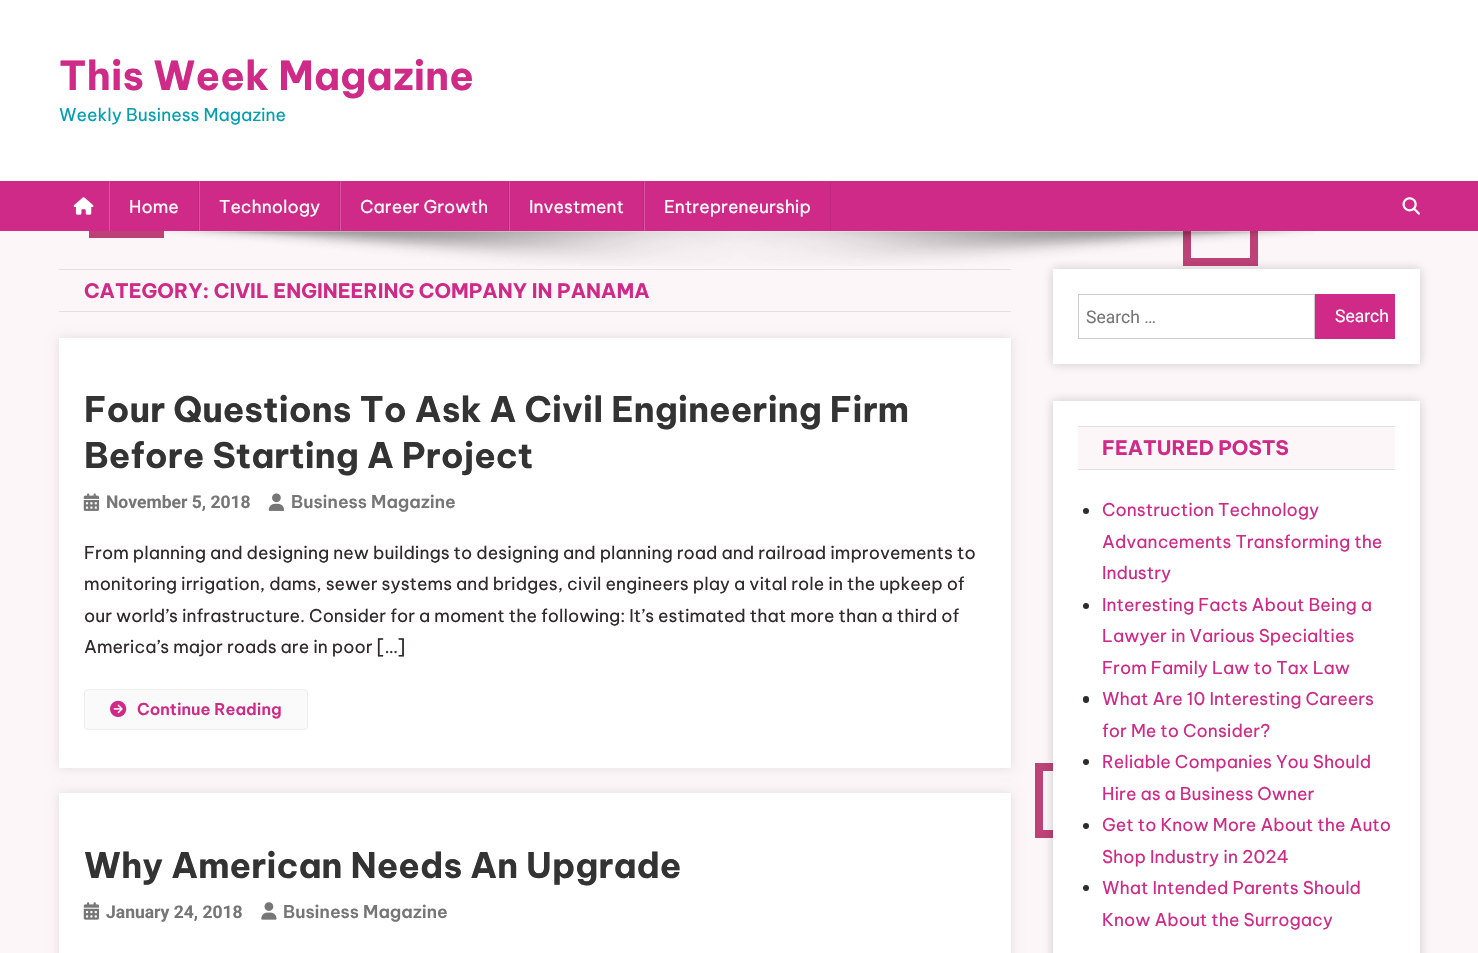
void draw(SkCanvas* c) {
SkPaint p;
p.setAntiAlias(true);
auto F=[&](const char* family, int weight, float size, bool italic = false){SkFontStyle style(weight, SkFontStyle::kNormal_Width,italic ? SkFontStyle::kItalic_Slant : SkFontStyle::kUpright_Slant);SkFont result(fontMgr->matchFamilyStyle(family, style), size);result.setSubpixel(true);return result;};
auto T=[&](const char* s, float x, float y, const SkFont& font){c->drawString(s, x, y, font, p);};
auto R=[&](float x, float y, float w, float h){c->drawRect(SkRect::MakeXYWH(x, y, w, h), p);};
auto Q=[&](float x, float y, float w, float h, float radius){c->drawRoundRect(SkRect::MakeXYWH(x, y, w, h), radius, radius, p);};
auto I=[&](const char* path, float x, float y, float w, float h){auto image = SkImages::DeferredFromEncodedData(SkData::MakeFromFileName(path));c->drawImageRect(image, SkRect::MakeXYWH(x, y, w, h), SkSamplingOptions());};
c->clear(0xfffdf6f9);
p.setStroke(true);
p.setStrokeWidth(8);
p.setColor(0xffbd4177);
c->drawRect(SkRect::MakeXYWH(93,167,67,67),p);
p.setStroke(false);
p.setColor(0xffffffff);
R(0,0,1478,181);
auto f1 = F("Be Vietnam Pro",700,40);
p.setColor(0xffcf2a88);
T("This Week Magazine",59,90,f1);
auto f2 = F("Be Vietnam Pro",400,17.5);
p.setColor(0xff029fb2);
T("Weekly Business Magazine",59,121,f2);
p.setStroke(true);
p.setColor(0xffbd4177);
c->drawRect(SkRect::MakeXYWH(1187,195,67,67),p);
p.setStroke(false);
p.setColor(0xffcf2a88);
R(0,181,1478,50);
I("1.png",73,197,21,18);
p.setColor(0xffbe277d);
R(198,181,1,50);
p.setColor(0xffd955a0);
R(109,181,1,50);
p.setColor(0xffffffff);
T("Home",129,213,f2);
p.setColor(0xffbe277d);
R(339,181,1,50);
p.setColor(0xffd955a0);
R(199,181,1,50);
p.setColor(0xffffffff);
T("Technology",219,213,f2);
p.setColor(0xffbe277d);
R(508,181,1,50);
p.setColor(0xffd955a0);
R(340,181,1,50);
p.setColor(0xffffffff);
T("Career Growth",360,213,f2);
p.setColor(0xffbe277d);
R(643,181,1,50);
p.setColor(0xffd955a0);
R(509,181,1,50);
p.setColor(0xffffffff);
T("Investment",529,213,f2);
p.setColor(0xffbe277d);
R(830,181,1,50);
p.setColor(0xffd955a0);
R(644,181,1,50);
p.setColor(0xffffffff);
T("Entrepreneurship",664,213,f2);
I("2.png",1402,197,18,18);
p.setColor(0x33000500);
p.setMaskFilter(SkMaskFilter::MakeBlur(kNormal_SkBlurStyle, 5));
c->drawRect(SkRect::MakeXYWH(1053,269,367,95),p);
p.setMaskFilter(nullptr);
I("3.png",165,231,1149,35);
p.setColor(0xffe1e1e1);
R(59,269,952,1);
R(59,311,952,1);
auto f3 = F("Be Vietnam Pro",700,20);
p.setColor(0xffcf2a88);
T("CATEGORY: CIVIL ENGINEERING COMPANY IN PANAMA",84,298,f3);
p.setColor(0x1a000000);
p.setMaskFilter(SkMaskFilter::MakeBlur(kNormal_SkBlurStyle, 5));
c->drawRect(SkRect::MakeXYWH(59,338,952,430),p);
p.setMaskFilter(nullptr);
p.setColor(0xffffffff);
R(59,338,952,430);
auto f4 = F("Be Vietnam Pro",700,35);
p.setColor(0xff333333);
T("Four Questions To Ask A Civil Engineering Firm",84,422,f4);
T("Before Starting A Project",84,468,f4);
I("4.png",83,493,17,18);
auto f5 = F("Roboto",700,17.5);
p.setColor(0xff767676);
T("November 5, 2018",106,508,f5);
I("5.png",268,493,16,18);
auto f6 = F("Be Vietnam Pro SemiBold",600,17.5);
T("Business Magazine",291,508,f6);
p.setColor(0xff302b2b);
T("From planning and designing new buildings to designing and planning road and railroad improvements to",84,559,f2);
T("monitoring irrigation, dams, sewer systems and bridges, civil engineers play a vital role in the upkeep of",84,590,f2);
T("our world’s infrastructure. Consider for a moment the following: It’s estimated that more than a third of",84,622,f2);
T("America’s major roads are in poor […]",84,653,f2);
p.setColor(0xfffafafa);
c->drawRoundRect(SkRect::MakeXYWH(84.5,689.5,223,40),3.5,3.5,p);
p.setStroke(true);
p.setStrokeWidth(1);
p.setColor(0xffeeeeee);
c->drawRoundRect(SkRect::MakeXYWH(84.5,689.5,223,40),3.5,3.5,p);
I("6.png",110,700,17,17);
auto f7 = F("Be Vietnam Pro SemiBold",600,16.25);
p.setStroke(false);
p.setColor(0xffcf2a88);
T("Continue Reading",137,715,f7);
p.setColor(0x1a000000);
p.setMaskFilter(SkMaskFilter::MakeBlur(kNormal_SkBlurStyle, 5));
c->drawRect(SkRect::MakeXYWH(59,793,952,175),p);
p.setMaskFilter(nullptr);
p.setColor(0xffffffff);
R(59,793,952,160);
p.setColor(0xff333333);
T("Why American Needs An Upgrade",84,878,f4);
I("7.png",83,902,17,18);
p.setColor(0xff767676);
T("January 24, 2018",106,918,f5);
I("8.png",261,902,16,18);
T("Business Magazine",283,918,f6);
p.setColor(0xffffffff);
R(1053,269,367,95);
p.setStroke(true);
p.setColor(0xffcccccc);
c->drawRect(SkRect::MakeXYWH(1078.5,294.5,236,44),p);
auto f8 = F("Roboto",400,17.5);
p.setStroke(false);
p.setColor(0xff767676);
T("Search …",1086,323,f8);
p.setColor(0xffcf2a88);
R(1315,294,80,45);
p.setColor(0xffffffff);
T("Search",1335,322,f8);
p.setStroke(true);
p.setStrokeWidth(8);
p.setColor(0xffbd4177);
c->drawRect(SkRect::MakeXYWH(1039,767,67,67),p);
p.setStroke(false);
p.setColor(0x33000500);
p.setMaskFilter(SkMaskFilter::MakeBlur(kNormal_SkBlurStyle, 5));
c->drawRect(SkRect::MakeXYWH(1053,401,367,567),p);
p.setMaskFilter(nullptr);
p.setColor(0xffffffff);
R(1053,401,367,552);
p.setColor(0xfffdf6f9);
R(1078,427,317,42);
p.setColor(0xffe1e1e1);
R(1078,426,317,1);
R(1078,469,317,1);
p.setColor(0xffcf2a88);
T("FEATURED POSTS",1102,455,f3);
p.setColor(0xff302b2b);
c->drawCircle(1086,511,3,p);
p.setColor(0xffcf2a88);
T("Construction Technology",1102,516,f2);
T("Advancements Transforming the",1102,548,f2);
T("Industry",1102,579,f2);
p.setColor(0xff302b2b);
c->drawCircle(1086,606,3,p);
p.setColor(0xffcf2a88);
T("Interesting Facts About Being a",1102,611,f2);
T("Lawyer in Various Specialties",1102,642,f2);
T("From Family Law to Tax Law",1102,674,f2);
p.setColor(0xff302b2b);
Q(1083,696,6,7,3);
p.setColor(0xffcf2a88);
T("What Are 10 Interesting Careers",1102,705,f2);
T("for Me to Consider?",1102,737,f2);
p.setColor(0xff302b2b);
c->drawCircle(1086,762,3,p);
p.setColor(0xffcf2a88);
T("Reliable Companies You Should",1102,768,f2);
T("Hire as a Business Owner",1102,800,f2);
p.setColor(0xff302b2b);
c->drawCircle(1086,826,3,p);
p.setColor(0xffcf2a88);
T("Get to Know More About the Auto",1102,831,f2);
T("Shop Industry in 2024",1102,863,f2);
p.setColor(0xff302b2b);
c->drawCircle(1086,888,3,p);
p.setColor(0xffcf2a88);
T("What Intended Parents Should",1102,894,f2);
T("Know About the Surrogacy",1102,926,f2);
}
